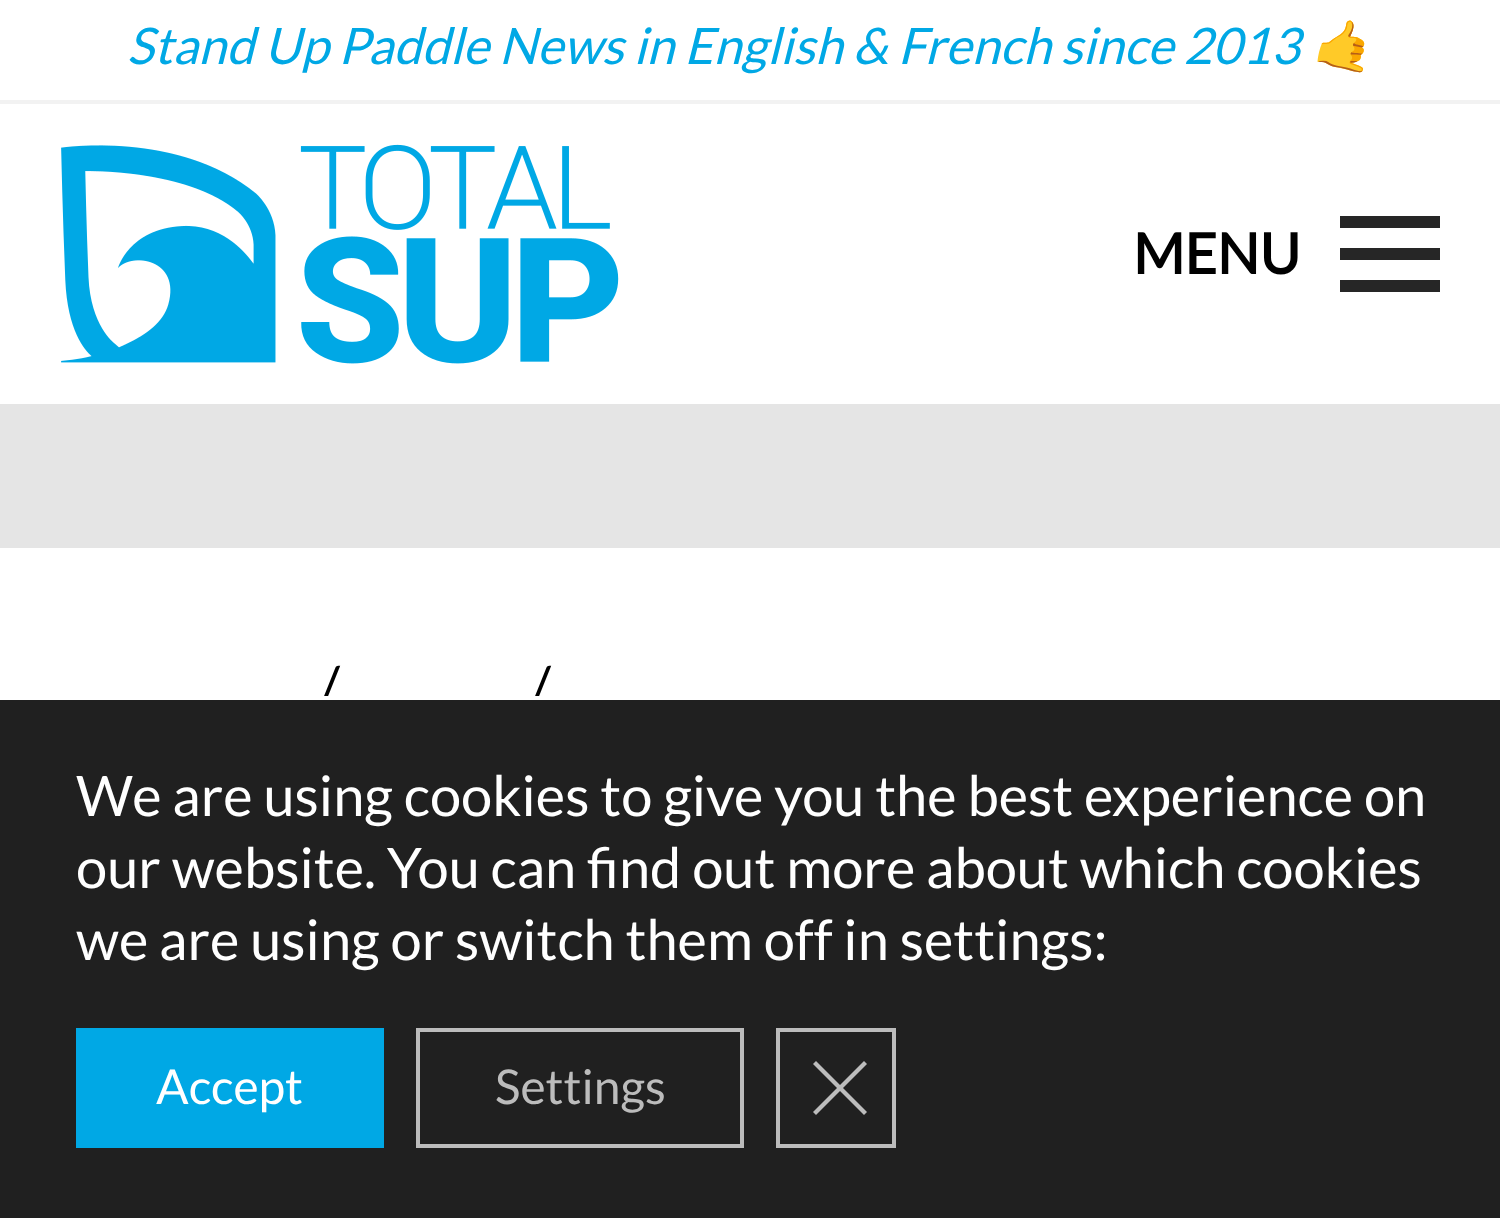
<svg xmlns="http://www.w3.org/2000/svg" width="1500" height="1218">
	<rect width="100%" height="100%" fill="#FFFFFF" />
	<rect x="0" y="100" width="1500" height="4" fill="#F2F2F2" />
	<text x="127" y="64" font-family="Lato" font-size="50.4" font-style="italic" fill="#00A8E5">Stand Up Paddle News in English &amp; French since 2013</text>
	<text x="1310" y="64" font-family="Noto Color Emoji" font-size="50.4" font-style="italic" fill="#00A8E5">🤙</text>
	<image x="61" y="144" width="558" height="220" href="assets/img1.png" />
	<text x="1133" y="274" font-family="Lato" font-size="56" font-weight="700" fill="#000000">MENU</text>
	<rect x="1340" y="216" width="100" height="12" fill="#262626" />
	<rect x="1340" y="248" width="100" height="12" fill="#262626" />
	<rect x="1340" y="280" width="100" height="12" fill="#262626" />
	<rect x="0" y="404" width="1500" height="144" fill="#E5E5E5" />
	<g font-family="Lato" font-size="56" fill="#000000">
		<text x="319" y="707">/</text>
		<text x="530" y="707">/</text>
	</g>
	<rect x="0" y="700" width="1500" height="518" fill="#202020" />
	<rect x="322" y="696" width="217" height="4" fill="#FFFFFF" />
	<g font-family="Lato" font-size="56" fill="#FFFFFF">
		<text x="76" y="816">We are using cookies to give you the best experience on</text>
		<text x="76" y="888">our website. You can find out more about which cookies</text>
		<text x="76" y="960">we are using or switch them off in settings:</text>
	</g>
	<rect x="76" y="1028" width="308" height="120" fill="#00A8E5" />
	<text x="156" y="1104" font-family="Lato" font-size="48" fill="#FFFFFF">Accept</text>
	<rect x="418" y="1030" width="324" height="116" fill="none" stroke="#BCBCBC" stroke-width="4" />
	<text x="495" y="1104" font-family="Lato" font-size="48" fill="#BCBCBC">Settings</text>
	<rect x="778" y="1030" width="116" height="116" fill="none" stroke="#BCBCBC" stroke-width="4" />
	<path d="M864 1061L867 1064L816 1115L813 1112Z" fill="#BCBCBC" />
	<path d="M813 1064L816 1061L867 1112L864 1115Z" fill="#BCBCBC" />
</svg>
